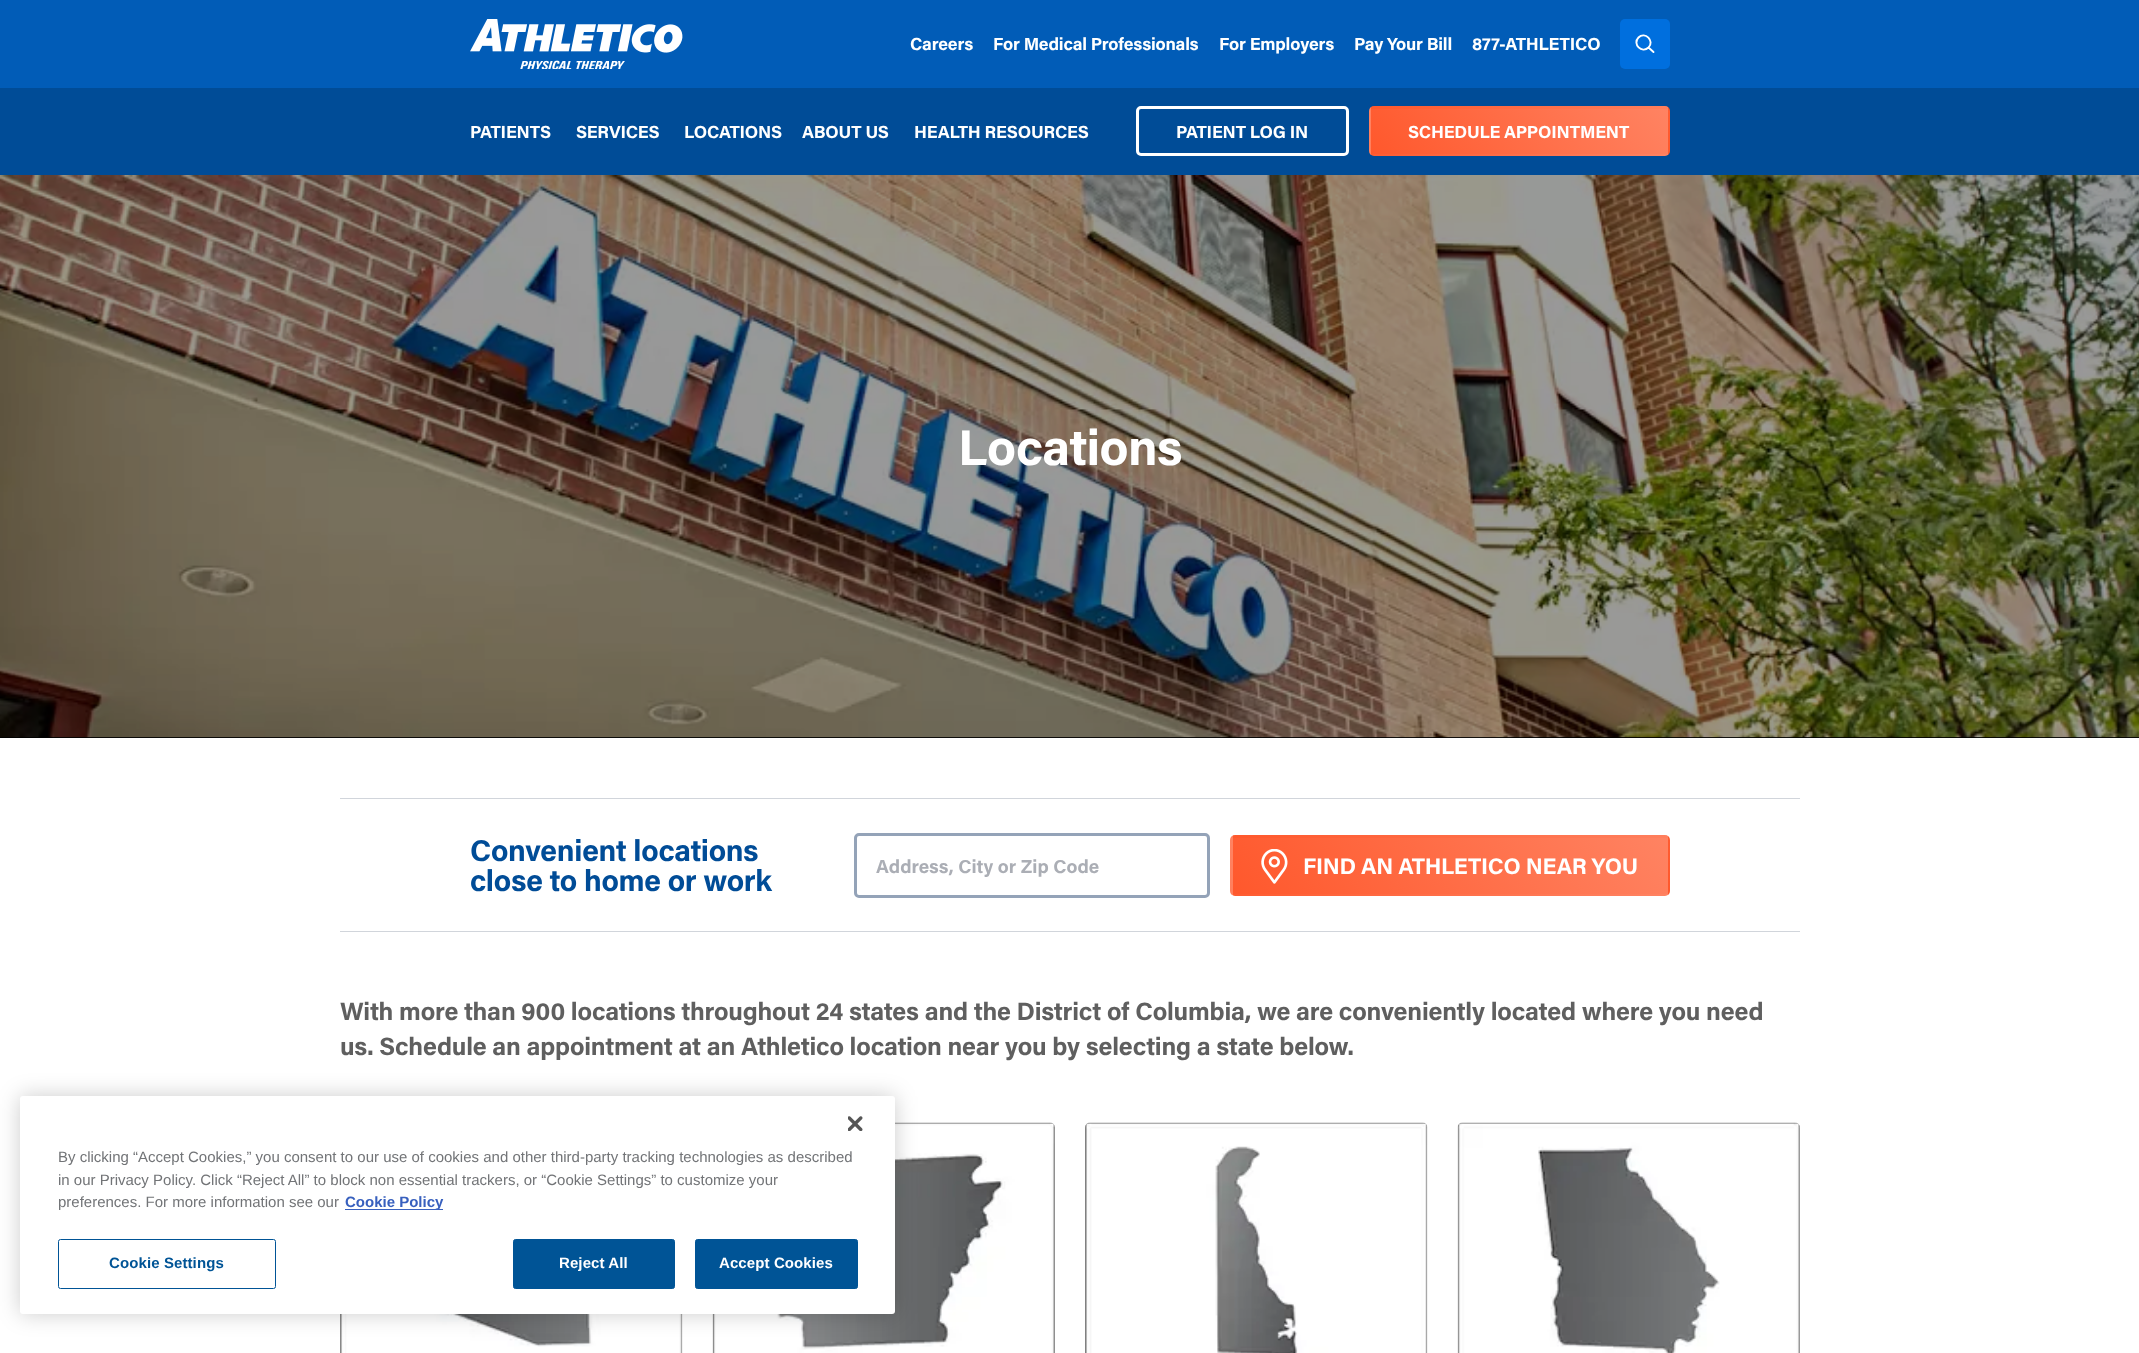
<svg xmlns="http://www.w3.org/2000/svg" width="2139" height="1353">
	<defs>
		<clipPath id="clip1"><rect x="1369" y="106" width="301" height="50" rx="5" /></clipPath>
		<linearGradient id="g1" gradientUnits="userSpaceOnUse" x1="1326" y1="5.9" x2="1120" y2="167"><stop offset="0" stop-color="#FF8362" /><stop offset="1" stop-color="#FF582C" /></linearGradient>
		<linearGradient id="g2" gradientUnits="userSpaceOnUse" x1="1622" y1="5.9" x2="1416" y2="167"><stop offset="0" stop-color="#FF8362" /><stop offset="1" stop-color="#FF582C" /></linearGradient>
		<linearGradient id="g3" gradientUnits="userSpaceOnUse" x1="1919" y1="5.9" x2="1713" y2="167"><stop offset="0" stop-color="#FF8362" /><stop offset="1" stop-color="#FF582C" /></linearGradient>
		<linearGradient id="g4" gradientUnits="userSpaceOnUse" x1="1326" y1="51" x2="1120" y2="212"><stop offset="0" stop-color="#FF8362" /><stop offset="1" stop-color="#FF582C" /></linearGradient>
		<linearGradient id="g5" gradientUnits="userSpaceOnUse" x1="1622" y1="51" x2="1416" y2="212"><stop offset="0" stop-color="#FF8362" /><stop offset="1" stop-color="#FF582C" /></linearGradient>
		<linearGradient id="g6" gradientUnits="userSpaceOnUse" x1="1919" y1="51" x2="1713" y2="212"><stop offset="0" stop-color="#FF8362" /><stop offset="1" stop-color="#FF582C" /></linearGradient>
		<linearGradient id="g7" gradientUnits="userSpaceOnUse" x1="1326" y1="96" x2="1120" y2="257"><stop offset="0" stop-color="#FF8362" /><stop offset="1" stop-color="#FF582C" /></linearGradient>
		<linearGradient id="g8" gradientUnits="userSpaceOnUse" x1="1622" y1="96" x2="1416" y2="257"><stop offset="0" stop-color="#FF8362" /><stop offset="1" stop-color="#FF582C" /></linearGradient>
		<linearGradient id="g9" gradientUnits="userSpaceOnUse" x1="1919" y1="96" x2="1713" y2="257"><stop offset="0" stop-color="#FF8362" /><stop offset="1" stop-color="#FF582C" /></linearGradient>
		<clipPath id="clip2"><rect x="1230" y="835" width="440" height="61" rx="5" /></clipPath>
		<linearGradient id="g10" gradientUnits="userSpaceOnUse" x1="1164" y1="693" x2="866" y2="926"><stop offset="0" stop-color="#FF8362" /><stop offset="1" stop-color="#FF582C" /></linearGradient>
		<linearGradient id="g11" gradientUnits="userSpaceOnUse" x1="1599" y1="693" x2="1301" y2="926"><stop offset="0" stop-color="#FF8362" /><stop offset="1" stop-color="#FF582C" /></linearGradient>
		<linearGradient id="g12" gradientUnits="userSpaceOnUse" x1="2034" y1="693" x2="1736" y2="926"><stop offset="0" stop-color="#FF8362" /><stop offset="1" stop-color="#FF582C" /></linearGradient>
		<linearGradient id="g13" gradientUnits="userSpaceOnUse" x1="1164" y1="749" x2="866" y2="982"><stop offset="0" stop-color="#FF8362" /><stop offset="1" stop-color="#FF582C" /></linearGradient>
		<linearGradient id="g14" gradientUnits="userSpaceOnUse" x1="1599" y1="749" x2="1301" y2="982"><stop offset="0" stop-color="#FF8362" /><stop offset="1" stop-color="#FF582C" /></linearGradient>
		<linearGradient id="g15" gradientUnits="userSpaceOnUse" x1="2034" y1="749" x2="1736" y2="982"><stop offset="0" stop-color="#FF8362" /><stop offset="1" stop-color="#FF582C" /></linearGradient>
		<linearGradient id="g16" gradientUnits="userSpaceOnUse" x1="1164" y1="806" x2="866" y2="1038"><stop offset="0" stop-color="#FF8362" /><stop offset="1" stop-color="#FF582C" /></linearGradient>
		<linearGradient id="g17" gradientUnits="userSpaceOnUse" x1="1599" y1="806" x2="1301" y2="1038"><stop offset="0" stop-color="#FF8362" /><stop offset="1" stop-color="#FF582C" /></linearGradient>
		<linearGradient id="g18" gradientUnits="userSpaceOnUse" x1="2034" y1="806" x2="1736" y2="1038"><stop offset="0" stop-color="#FF8362" /><stop offset="1" stop-color="#FF582C" /></linearGradient>
	</defs>
	<rect width="100%" height="100%" fill="#FFFFFF" />
	<rect x="0" y="0" width="2139" height="88" fill="#015CB7" />
	<image x="470" y="19" width="213" height="50" href="assets/img1.png" />
	<g font-family="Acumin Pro" font-size="17.5" font-weight="700" letter-spacing="-0.2" fill="#FFFFFF">
		<text x="910" y="50">Careers</text>
		<text x="993" y="50">For Medical Professionals</text>
		<text x="1219" y="50">For Employers</text>
		<text x="1354" y="50">Pay Your Bill</text>
		<text x="1472" y="50">877-ATHLETICO</text>
	</g>
	<rect x="1620" y="19" width="50" height="50" rx="5" fill="#006FDE" />
	<path d="M1653.5 52L1648.5 47.5M1648.5 47.5C1655 41 1645 31 1638.5 37.5C1632 44 1642 54 1648.5 47.5Z" fill="none" stroke="#FFFFFF" stroke-width="1.9" stroke-linecap="round" stroke-linejoin="round" />
	<rect x="0" y="88" width="2139" height="87" fill="#004C97" />
	<g font-family="Acumin Pro" font-size="17.5" font-weight="700" letter-spacing="-0.2" fill="#FFFFFF">
		<text x="470" y="138">PATIENTS</text>
		<text x="576" y="138">SERVICES</text>
		<text x="684" y="138">LOCATIONS</text>
		<text x="802" y="138">ABOUT US</text>
		<text x="914" y="138">HEALTH RESOURCES</text>
	</g>
	<rect x="1137.5" y="107.5" width="210" height="47" rx="3.5" fill="none" stroke="#FFFFFF" stroke-width="3" />
	<text x="1176" y="138" font-family="Acumin Pro" font-size="17.5" font-weight="700" letter-spacing="-0.2" fill="#FFFFFF">PATIENT LOG IN</text>
	<g clip-path="url(#clip1)">
		<rect x="1369" y="106" width="2" height="3" fill="url(#g1)" />
		<rect x="1371" y="106" width="297" height="3" fill="url(#g2)" />
		<rect x="1668" y="106" width="2" height="3" fill="url(#g3)" />
		<rect x="1369" y="109" width="2" height="45" fill="url(#g4)" />
	</g>
	<rect x="1371" y="109" width="297" height="45" fill="url(#g5)" />
	<g clip-path="url(#clip1)">
		<rect x="1668" y="109" width="2" height="45" fill="url(#g6)" />
		<rect x="1369" y="154" width="2" height="1" fill="url(#g7)" />
		<rect x="1371" y="154" width="297" height="2" fill="url(#g8)" />
		<rect x="1668" y="154" width="2" height="1" fill="url(#g9)" />
	</g>
	<text x="1408" y="138" font-family="Acumin Pro" font-size="17.5" font-weight="700" letter-spacing="-0.2" fill="#FFFFFF">SCHEDULE APPOINTMENT</text>
	<rect x="0" y="737" width="2139" height="1" fill="#000000" />
	<image x="0" y="175" width="2139" height="563" href="assets/img2.png" />
	<text x="958" y="465" font-family="Acumin Pro" font-size="50" font-weight="700" letter-spacing="-0.5" fill="#FFFFFF">Locations</text>
	<rect x="340" y="798" width="1460" height="1" fill="#D1D5DB" />
	<g font-family="Acumin Pro" font-size="30" font-weight="700" letter-spacing="-0.3" fill="#004C97">
		<text x="470" y="861">Convenient locations</text>
		<text x="470" y="891">close to home or work</text>
	</g>
	<rect x="855.5" y="834.5" width="353" height="62" rx="3.5" fill="none" stroke="#94A3B8" stroke-width="3" />
	<text x="876" y="873" font-family="Acumin Pro" font-size="18.75" font-weight="700" fill="#ABAEB5">Address, City or Zip Code</text>
	<g clip-path="url(#clip2)">
		<rect x="1230" y="835" width="3" height="3" fill="url(#g10)" />
		<rect x="1233" y="835" width="435" height="3" fill="url(#g11)" />
		<rect x="1668" y="835" width="2" height="3" fill="url(#g12)" />
		<rect x="1230" y="838" width="3" height="56" fill="url(#g13)" />
	</g>
	<rect x="1233" y="838" width="435" height="56" fill="url(#g14)" />
	<g clip-path="url(#clip2)">
		<rect x="1668" y="838" width="2" height="56" fill="url(#g15)" />
		<rect x="1230" y="894" width="3" height="2" fill="url(#g16)" />
		<rect x="1233" y="894" width="435" height="2" fill="url(#g17)" />
		<rect x="1668" y="894" width="2" height="1" fill="url(#g18)" />
	</g>
	<image x="1261" y="849" width="27" height="35" href="assets/img3.png" />
	<text x="1303" y="874" font-family="Acumin Pro" font-size="22.5" font-weight="700" letter-spacing="-0.25" fill="#FFFFFF">FIND AN ATHLETICO NEAR YOU</text>
	<rect x="340" y="931" width="1460" height="1" fill="#D1D5DB" />
	<g font-family="Acumin Pro" font-size="25" font-weight="700" letter-spacing="-0.2" fill="#5F5F5F">
		<text x="340" y="1020">With more than 900 locations throughout 24 states and the District of Columbia, we are conveniently located where you need</text>
		<text x="340" y="1055">us. Schedule an appointment at an Athletico location near you by selecting a state below.</text>
	</g>
	<image x="340" y="1314" width="343" height="39" href="assets/img4.png" />
	<image x="712" y="1122" width="343" height="231" href="assets/img5.png" />
	<image x="1085" y="1122" width="343" height="231" href="assets/img6.png" />
	<image x="1457" y="1122" width="343" height="231" href="assets/img7.png" />
	<rect x="20" y="1096" width="875" height="218" rx="3" fill="#000000" fill-opacity="0.2" filter="blur(11px)" />
	<rect x="20" y="1096" width="875" height="218" rx="3" fill="#FFFFFF" />
	<image x="848" y="1116" width="15" height="15" href="assets/img8.png" />
	<g font-family="Liberation Sans" font-size="15" fill="#727477">
		<text x="58" y="1162">By clicking “Accept Cookies,” you consent to our use of cookies and other third-party tracking technologies as described</text>
		<text x="58" y="1185">in our Privacy Policy. Click “Reject All” to block non essential trackers, or “Cookie Settings” to customize your</text>
		<text x="58" y="1207">preferences. For more information see our</text>
	</g>
	<rect x="345" y="1209" width="98" height="1" fill="#3860BE" />
	<text x="345" y="1207" font-family="Liberation Sans" font-size="15" font-weight="700" fill="#3860BE">Cookie Policy</text>
	<rect x="58.5" y="1239.5" width="217" height="49" rx="2" fill="none" stroke="#005496" />
	<text x="109" y="1268" font-family="Liberation Sans" font-size="15" font-weight="700" letter-spacing="0.1" fill="#005496">Cookie Settings</text>
	<rect x="513.5" y="1239.5" width="161" height="49" rx="2" fill="#005496" stroke="#005496" />
	<text x="559" y="1268" font-family="Liberation Sans" font-size="15" font-weight="700" letter-spacing="0.1" fill="#FFFFFF">Reject All</text>
	<rect x="695.5" y="1239.5" width="162" height="49" rx="2" fill="#005496" stroke="#005496" />
	<text x="719" y="1268" font-family="Liberation Sans" font-size="15" font-weight="700" letter-spacing="0.1" fill="#FFFFFF">Accept Cookies</text>
</svg>
